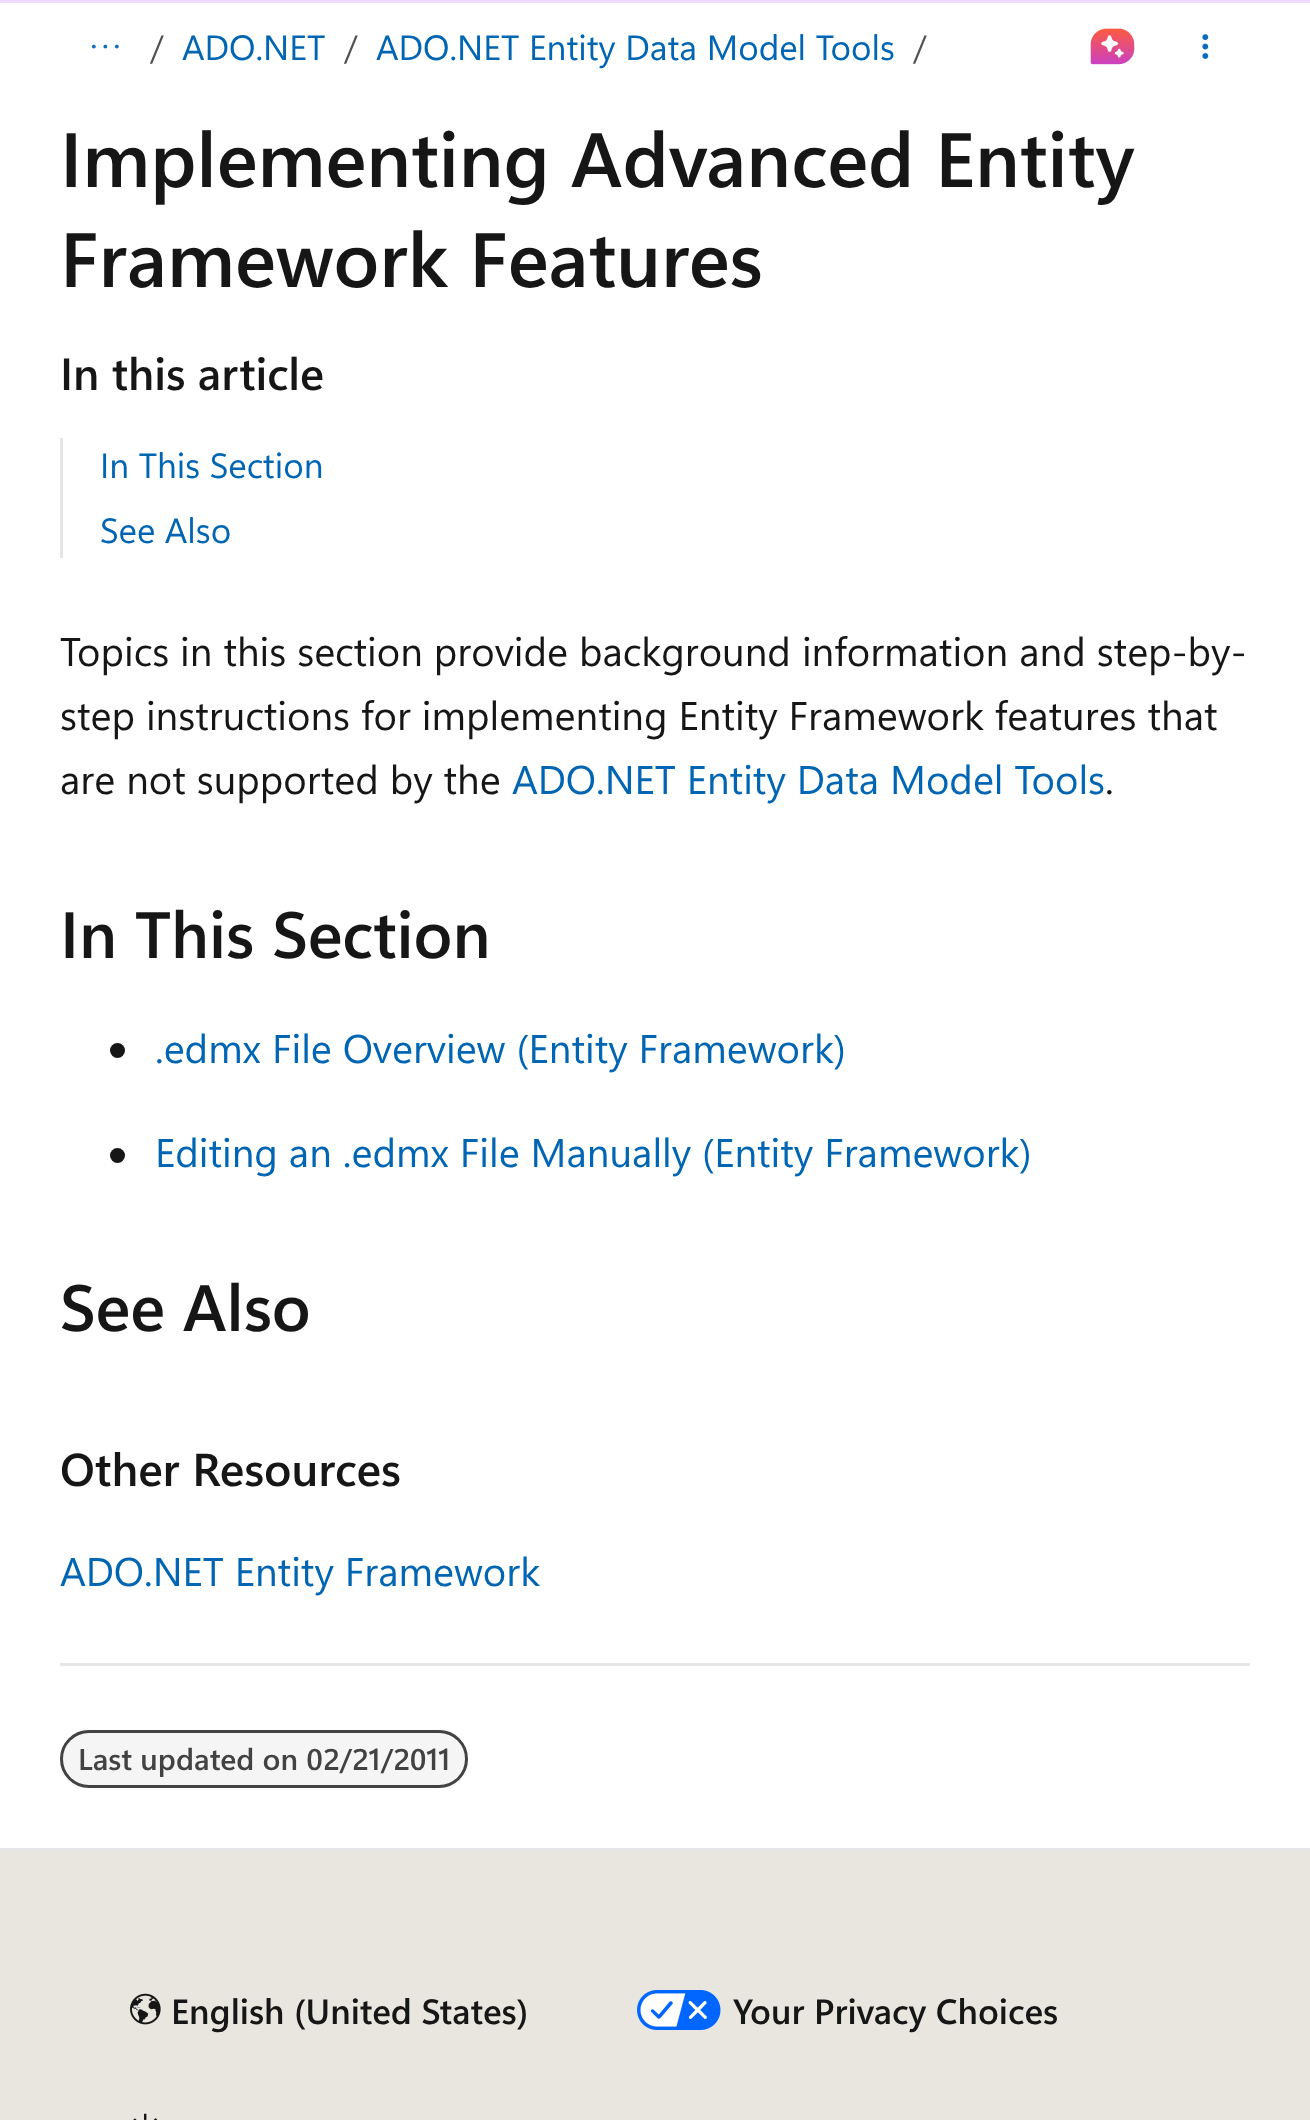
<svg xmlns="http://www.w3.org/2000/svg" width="1310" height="2120">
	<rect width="100%" height="100%" fill="#FFFFFF" />
	<rect x="0" y="0" width="1310" height="3" fill="#EFD9FD" />
	<image x="91" y="44" width="28" height="5" href="assets/img1.png" />
	<text x="150" y="60" font-family="Segoe UI" font-size="35" fill="#505050">/</text>
	<text x="182" y="60" font-family="Segoe UI" font-size="35" fill="#0065B3">ADO.NET</text>
	<text x="344" y="60" font-family="Segoe UI" font-size="35" fill="#505050">/</text>
	<text x="376" y="60" font-family="Segoe UI" font-size="35" fill="#0065B3">ADO.NET Entity Data Model Tools</text>
	<text x="913" y="60" font-family="Segoe UI" font-size="35" fill="#505050">/</text>
	<image x="1090" y="28" width="45" height="37" href="assets/img2.png" />
	<image x="1202" y="34" width="7" height="25" href="assets/img3.png" />
	<g font-family="Segoe UI" font-size="76.75" font-weight="600" fill="#161616">
		<text x="60" y="187">Implementing Advanced Entity</text>
		<text x="60" y="287">Framework Features</text>
	</g>
	<text x="60" y="390" font-family="Segoe UI" font-size="45" font-weight="600" fill="#161616">In this article</text>
	<rect x="60" y="438" width="3" height="120" fill="#E6E6E6" />
	<g font-family="Segoe UI" font-size="35" fill="#0065B3">
		<text x="100" y="478">In This Section</text>
		<text x="100" y="543">See Also</text>
	</g>
	<g font-family="Segoe UI" font-size="40" fill="#161616">
		<text x="60" y="666">Topics in this section provide background information and step-by-</text>
		<text x="60" y="730">step instructions for implementing Entity Framework features that</text>
		<text x="60" y="794">are not supported by the</text>
	</g>
	<text x="512" y="794" font-family="Segoe UI" font-size="40" fill="#0065B3">ADO.NET Entity Data Model Tools</text>
	<text x="1105" y="794" font-family="Segoe UI" font-size="40" fill="#161616">.</text>
	<text x="60" y="958" font-family="Segoe UI" font-size="65.25" font-weight="600" fill="#161616">In This Section</text>
	<circle cx="117.5" cy="1050.5" r="7.5" fill="#161616" />
	<text x="155" y="1063" font-family="Segoe UI" font-size="40" fill="#0065B3">.edmx File Overview (Entity Framework)</text>
	<circle cx="117.5" cy="1155.5" r="7.5" fill="#161616" />
	<text x="155" y="1167" font-family="Segoe UI" font-size="40" fill="#0065B3">Editing an .edmx File Manually (Entity Framework)</text>
	<text x="60" y="1331" font-family="Segoe UI" font-size="65.25" font-weight="600" fill="#161616">See Also</text>
	<text x="60" y="1486" font-family="Segoe UI" font-size="46" font-weight="600" fill="#161616">Other Resources</text>
	<text x="60" y="1586" font-family="Segoe UI" font-size="40" fill="#0065B3">ADO.NET Entity Framework</text>
	<rect x="60" y="1663" width="1190" height="3" fill="#E6E6E6" />
	<rect x="61.5" y="1731.5" width="405" height="55" rx="27.5" fill="#F5F5F5" stroke="#424242" stroke-width="3" />
	<text x="78" y="1770" font-family="Segoe UI" font-size="30" font-weight="600" fill="#424242">Last updated on 02/21/2011</text>
	<rect x="0" y="1851" width="1310" height="269" fill="#E8E6DF" />
	<rect x="0" y="1848" width="1310" height="3" fill="#E6E6E6" />
	<image x="130" y="1993" width="31" height="32" href="assets/img4.png" />
	<text x="171" y="2024" font-family="Segoe UI" font-size="35" font-weight="600" fill="#161616">English (United States)</text>
	<image x="637" y="1990" width="84" height="40" href="assets/img5.png" />
	<text x="733" y="2024" font-family="Segoe UI" font-size="35" font-weight="600" fill="#161616">Your Privacy Choices</text>
	<image x="133" y="2113" width="25" height="7" href="assets/img6.png" />
</svg>
